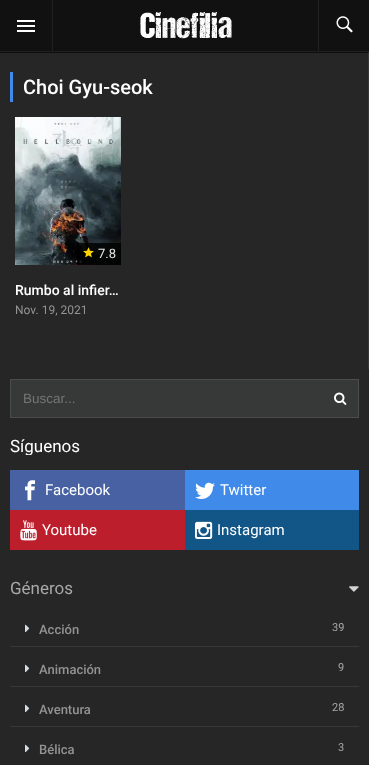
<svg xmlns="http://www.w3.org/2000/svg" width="369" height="765">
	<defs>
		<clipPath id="clip1"><rect x="10" y="438" width="349" height="17" /></clipPath>
	</defs>
	<rect width="100%" height="100%" fill="#262626" />
	<rect x="0" y="0" width="369" height="51" fill="#111111" />
	<rect x="0" y="52" width="369" height="1" fill="#0E0E0E" />
	<rect x="52" y="0" width="1" height="52" fill="#212121" />
	<image x="17" y="20" width="18" height="12" href="assets/img1.png" />
	<image x="140" y="12" width="92" height="27" href="assets/img2.png" />
	<rect x="318" y="0" width="1" height="52" fill="#212121" />
	<image x="336" y="16" width="17" height="17" href="assets/img3.png" />
	<rect x="0" y="51" width="369" height="1" fill="#202020" />
	<rect x="368" y="52" width="1" height="317" fill="#FFFFFF" fill-opacity="0.08" />
	<rect x="10" y="72" width="3" height="30" fill="#408BEA" />
	<text x="23" y="94" font-family="Roboto" font-size="20" font-weight="500" fill="#FFFFFF">Choi Gyu-seok</text>
	<image x="15" y="117" width="106" height="148" href="assets/img4.png" />
	<rect x="77" y="243" width="44" height="22" fill="#000000" fill-opacity="0.8" />
	<image x="83" y="247" width="11" height="11" href="assets/img5.png" />
	<text x="98" y="258" font-family="Roboto" font-size="13" fill="#E6E6E6">7.8</text>
	<text x="15" y="295" font-family="Roboto" font-size="14" font-weight="500" fill="#FFFFFF">Rumbo al infier…</text>
	<text x="15" y="314" font-family="Roboto" font-size="12" fill="#939393">Nov. 19, 2021</text>
	<rect x="10.5" y="379.5" width="348" height="38" fill="#373838" stroke="#4B4C4C" />
	<text x="23" y="403" font-family="Liberation Sans" font-size="13.5" fill="#757575">Buscar...</text>
	<image x="334" y="392" width="13" height="13" href="assets/img6.png" />
	<g clip-path="url(#clip1)">
		<text x="10" y="452" font-family="Roboto" font-size="17" fill="#FFFFFF">Síguenos</text>
	</g>
	<rect x="10" y="470" width="175" height="40" fill="#4861A3" />
	<image x="25" y="480" width="10" height="21" href="assets/img7.png" />
	<text x="45" y="495" font-family="Roboto" font-size="15" fill="#FFFFFF">Facebook</text>
	<rect x="185" y="470" width="174" height="40" fill="#408BEA" />
	<image x="195" y="482" width="20" height="17" href="assets/img8.png" />
	<text x="220" y="495" font-family="Roboto" font-size="15" fill="#FFFFFF">Twitter</text>
	<rect x="10" y="510" width="175" height="40" fill="#BC1E2C" />
	<image x="20" y="520" width="17" height="21" href="assets/img9.png" />
	<text x="42" y="535" font-family="Roboto" font-size="15" fill="#FFFFFF">Youtube</text>
	<rect x="185" y="510" width="174" height="40" fill="#125688" />
	<image x="195" y="521" width="18" height="18" href="assets/img10.png" />
	<text x="217" y="535" font-family="Roboto" font-size="15" fill="#FFFFFF">Instagram</text>
	<text x="10" y="594" font-family="Roboto" font-size="17" fill="#A8A8A8">Géneros</text>
	<image x="349" y="586" width="10" height="6" href="assets/img11.png" />
	<rect x="10" y="646" width="349" height="1" fill="#373838" />
	<image x="25" y="624" width="5" height="9" href="assets/img12.png" />
	<text x="39" y="634" font-family="Roboto" font-size="13" font-weight="500" fill="#939393">Acción</text>
	<text x="332" y="631" font-family="Roboto" font-size="11" fill="#A8A8A8">39</text>
	<rect x="10" y="686" width="349" height="1" fill="#373838" />
	<image x="25" y="664" width="5" height="9" href="assets/img12.png" />
	<text x="39" y="674" font-family="Roboto" font-size="13" font-weight="500" fill="#939393">Animación</text>
	<text x="338" y="671" font-family="Roboto" font-size="11" fill="#A8A8A8">9</text>
	<rect x="10" y="726" width="349" height="1" fill="#373838" />
	<image x="25" y="704" width="5" height="9" href="assets/img12.png" />
	<text x="39" y="714" font-family="Roboto" font-size="13" font-weight="500" fill="#939393">Aventura</text>
	<text x="332" y="711" font-family="Roboto" font-size="11" fill="#A8A8A8">28</text>
	<image x="25" y="744" width="5" height="9" href="assets/img12.png" />
	<text x="39" y="754" font-family="Roboto" font-size="13" font-weight="500" fill="#939393">Bélica</text>
	<text x="338" y="751" font-family="Roboto" font-size="11" fill="#A8A8A8">3</text>
</svg>
